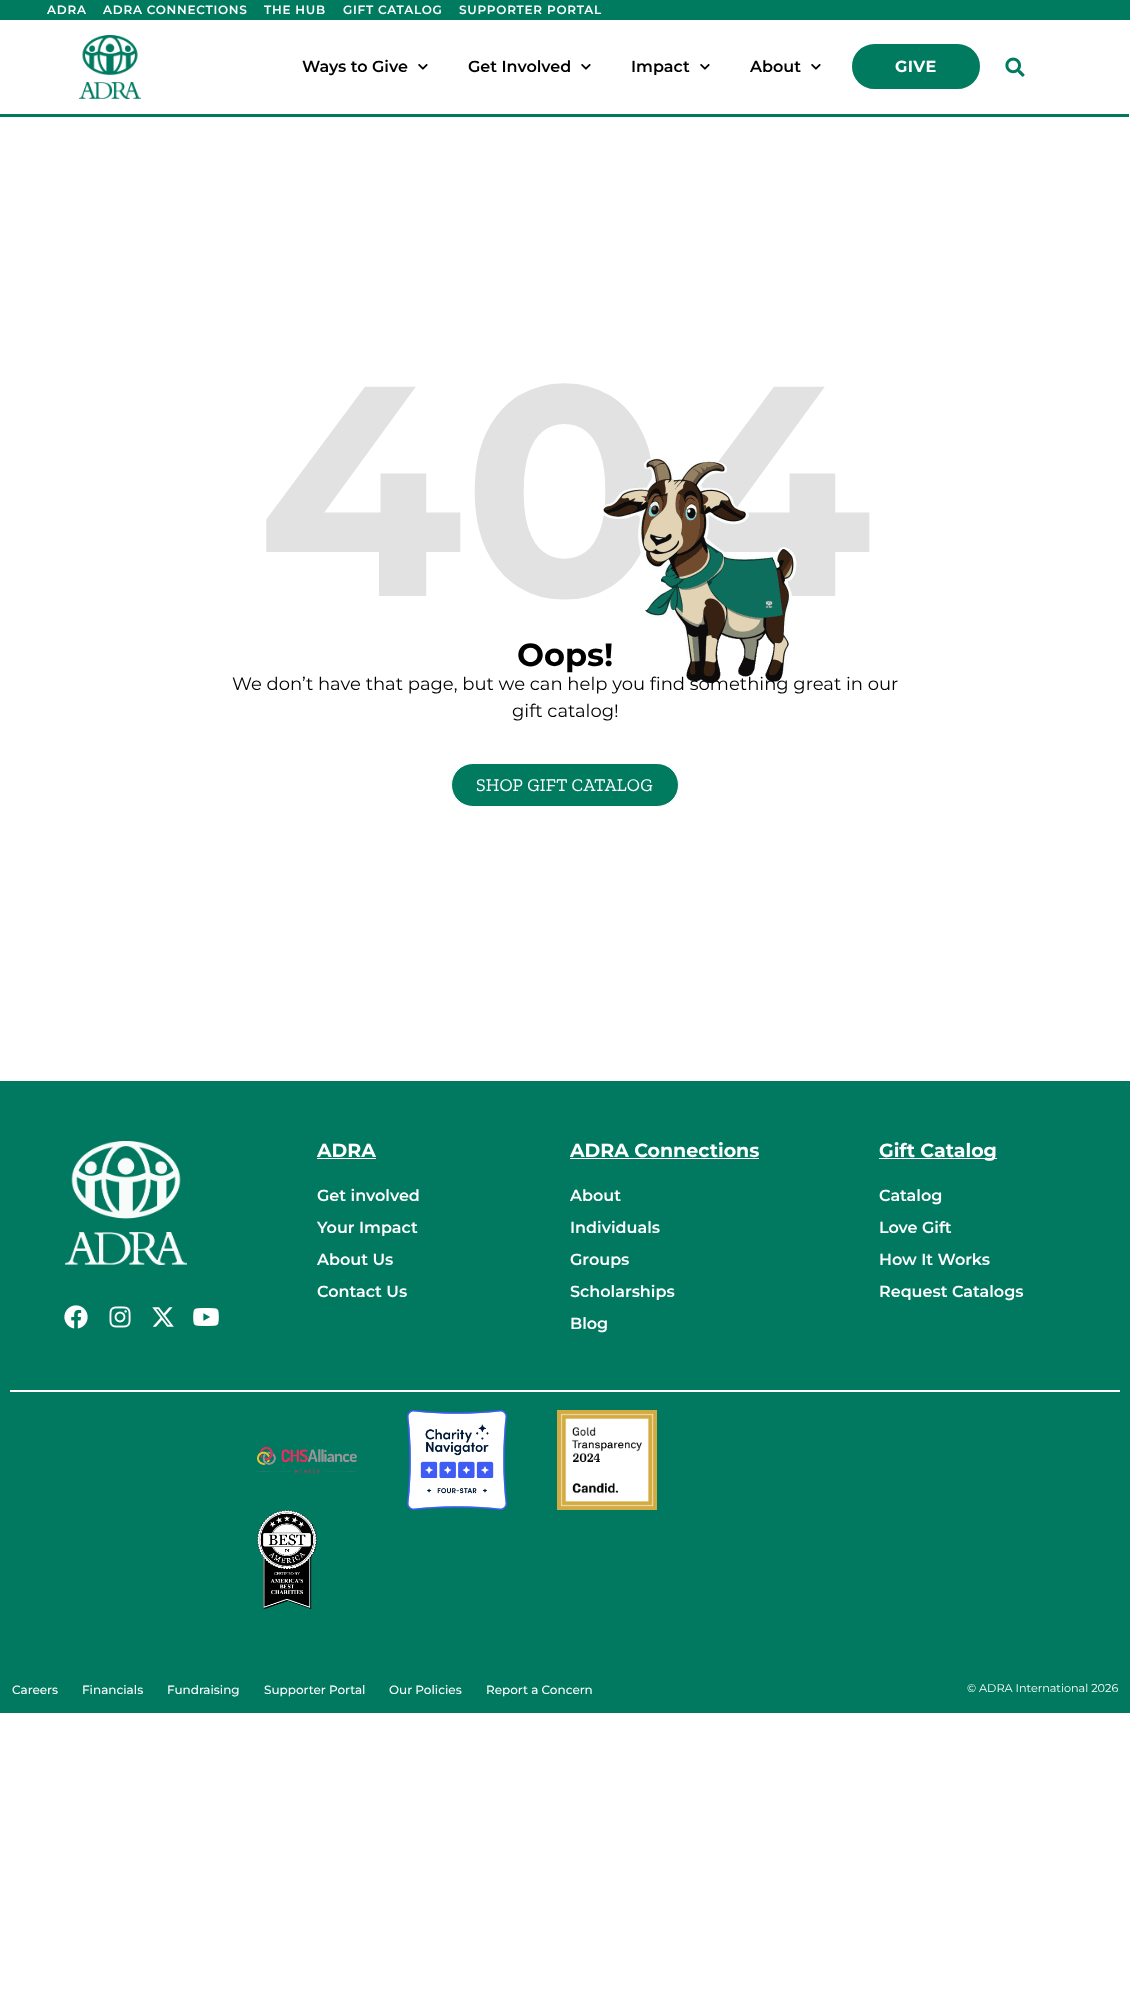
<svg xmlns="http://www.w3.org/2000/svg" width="1130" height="2008">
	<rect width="100%" height="100%" fill="#FFFFFF" />
	<rect x="0" y="0" width="1130" height="20" fill="#007B5F" />
	<g font-family="Montserrat" font-size="12" font-weight="600" letter-spacing="0.75" fill="#FFFFFF">
		<text x="47" y="14">ADRA</text>
		<text x="103" y="14">ADRA CONNECTIONS</text>
		<text x="264" y="14">THE HUB</text>
		<text x="343" y="14">GIFT CATALOG</text>
		<text x="459" y="14">SUPPORTER PORTAL</text>
	</g>
	<rect x="0" y="114" width="1129" height="3" fill="#007960" />
	<image x="79" y="35" width="62" height="64" href="assets/img1.png" />
	<text x="302" y="72" font-family="Montserrat" font-size="16" font-weight="600" fill="#000000">Ways to Give</text>
	<image x="418" y="64" width="10" height="6" href="assets/img2.png" />
	<text x="468" y="72" font-family="Montserrat" font-size="16" font-weight="600" fill="#000000">Get Involved</text>
	<image x="581" y="64" width="10" height="6" href="assets/img2.png" />
	<text x="631" y="72" font-family="Montserrat" font-size="16" font-weight="600" fill="#000000">Impact</text>
	<image x="700" y="64" width="10" height="6" href="assets/img2.png" />
	<text x="750" y="72" font-family="Montserrat" font-size="16" font-weight="600" fill="#000000">About</text>
	<image x="811" y="64" width="10" height="6" href="assets/img2.png" />
	<rect x="853.5" y="45.5" width="125" height="42" rx="21" fill="#007B5F" stroke="#007B5F" stroke-width="3" />
	<text x="895" y="72" font-family="Montserrat" font-size="16" font-weight="700" letter-spacing="0.5" fill="#FFFFFF">GIVE</text>
	<image x="1005" y="57" width="20" height="20" href="assets/img3.png" />
	<text x="257" y="596" font-family="Montserrat" font-size="299" font-weight="700" fill="#E2E2E2">404</text>
	<text x="517" y="666" font-family="Montserrat" font-size="32" font-weight="700" fill="#000000">Oops!</text>
	<text x="232" y="690" font-family="Montserrat" font-size="18" fill="#000000">We don’t have that page, but we can help you find something great in our</text>
	<image x="603" y="458" width="194" height="226" href="assets/img4.png" />
	<text x="512" y="717" font-family="Montserrat" font-size="18" fill="#000000">gift catalog!</text>
	<rect x="451.5" y="763.5" width="227" height="43" rx="21.5" fill="#007B5F" stroke="#FFFFFF" />
	<text x="476" y="791" font-family="Zilla Slab" font-size="18" letter-spacing="0.25" fill="#FFFFFF">SHOP GIFT CATALOG</text>
	<rect x="0" y="1081" width="1130" height="632" fill="#007960" />
	<image x="65" y="1141" width="122" height="124" href="assets/img5.png" />
	<image x="64" y="1305" width="24" height="24" href="assets/img6.png" />
	<image x="109" y="1306" width="22" height="22" href="assets/img7.png" />
	<image x="152" y="1307" width="22" height="20" href="assets/img8.png" />
	<image x="193" y="1308" width="26" height="18" href="assets/img9.png" />
	<text x="317" y="1157" font-family="Montserrat" font-size="19" font-weight="700" fill="#FFFFFF">ADRA</text>
	<rect x="317" y="1158" width="59" height="1" fill="#FFFFFF" />
	<g font-family="Montserrat" font-size="16" font-weight="600" fill="#FFFFFF">
		<text x="317" y="1201">Get involved</text>
		<text x="317" y="1233">Your Impact</text>
		<text x="317" y="1265">About Us</text>
		<text x="317" y="1297">Contact Us</text>
	</g>
	<text x="570" y="1157" font-family="Montserrat" font-size="19" font-weight="700" fill="#FFFFFF">ADRA Connections</text>
	<rect x="570" y="1158" width="189" height="1" fill="#FFFFFF" />
	<g font-family="Montserrat" font-size="16" font-weight="600" fill="#FFFFFF">
		<text x="570" y="1201">About</text>
		<text x="570" y="1233">Individuals</text>
		<text x="570" y="1265">Groups</text>
		<text x="570" y="1297">Scholarships</text>
		<text x="570" y="1329">Blog</text>
	</g>
	<rect x="879" y="1158" width="118" height="1" fill="#FFFFFF" />
	<text x="879" y="1157" font-family="Montserrat" font-size="19" font-weight="700" fill="#FFFFFF">Gift Catalog</text>
	<g font-family="Montserrat" font-size="16" font-weight="600" fill="#FFFFFF">
		<text x="879" y="1201">Catalog</text>
		<text x="879" y="1233">Love Gift</text>
		<text x="879" y="1265">How It Works</text>
		<text x="879" y="1297">Request Catalogs</text>
	</g>
	<rect x="10" y="1390" width="1110" height="2" fill="#FFFFFF" />
	<image x="257" y="1447" width="100" height="27" href="assets/img10.png" />
	<image x="407" y="1410" width="100" height="100" href="assets/img11.png" />
	<image x="557" y="1410" width="100" height="100" href="assets/img12.png" />
	<image x="257" y="1510" width="60" height="99" href="assets/img13.png" />
	<g font-family="Montserrat" font-size="12" font-weight="500" fill="#FFFFFF">
		<text x="12" y="1694">Careers</text>
		<text x="82" y="1694">Financials</text>
		<text x="167" y="1694">Fundraising</text>
		<text x="264" y="1694">Supporter Portal</text>
		<text x="389" y="1694">Our Policies</text>
		<text x="486" y="1694">Report a Concern</text>
	</g>
	<text x="967" y="1692" font-family="Montserrat" font-size="11.25" fill="#FFFFFF">© ADRA International 2026</text>
</svg>
